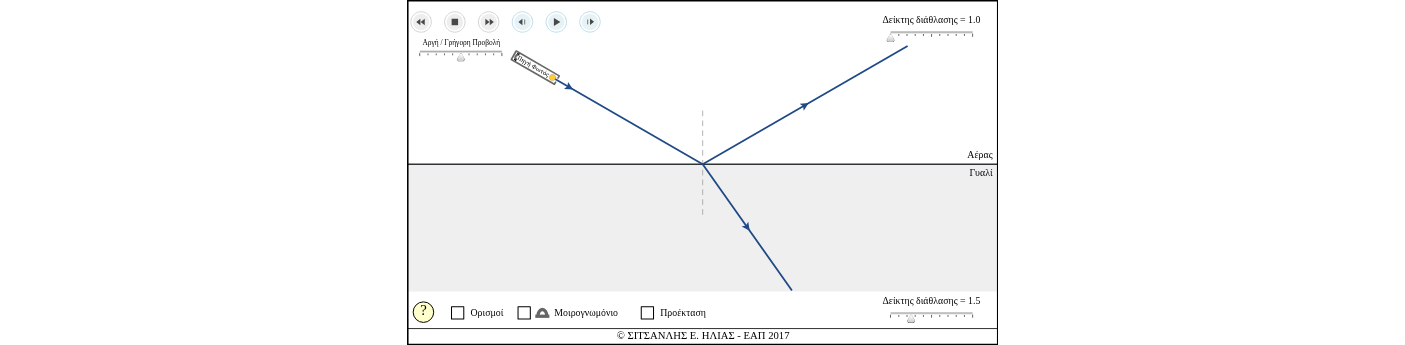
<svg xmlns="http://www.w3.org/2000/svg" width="1405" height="345">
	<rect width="100%" height="100%" fill="#FFFFFF" />
	<image x="407" y="0" width="591" height="345" href="assets/img1.png" />
</svg>
